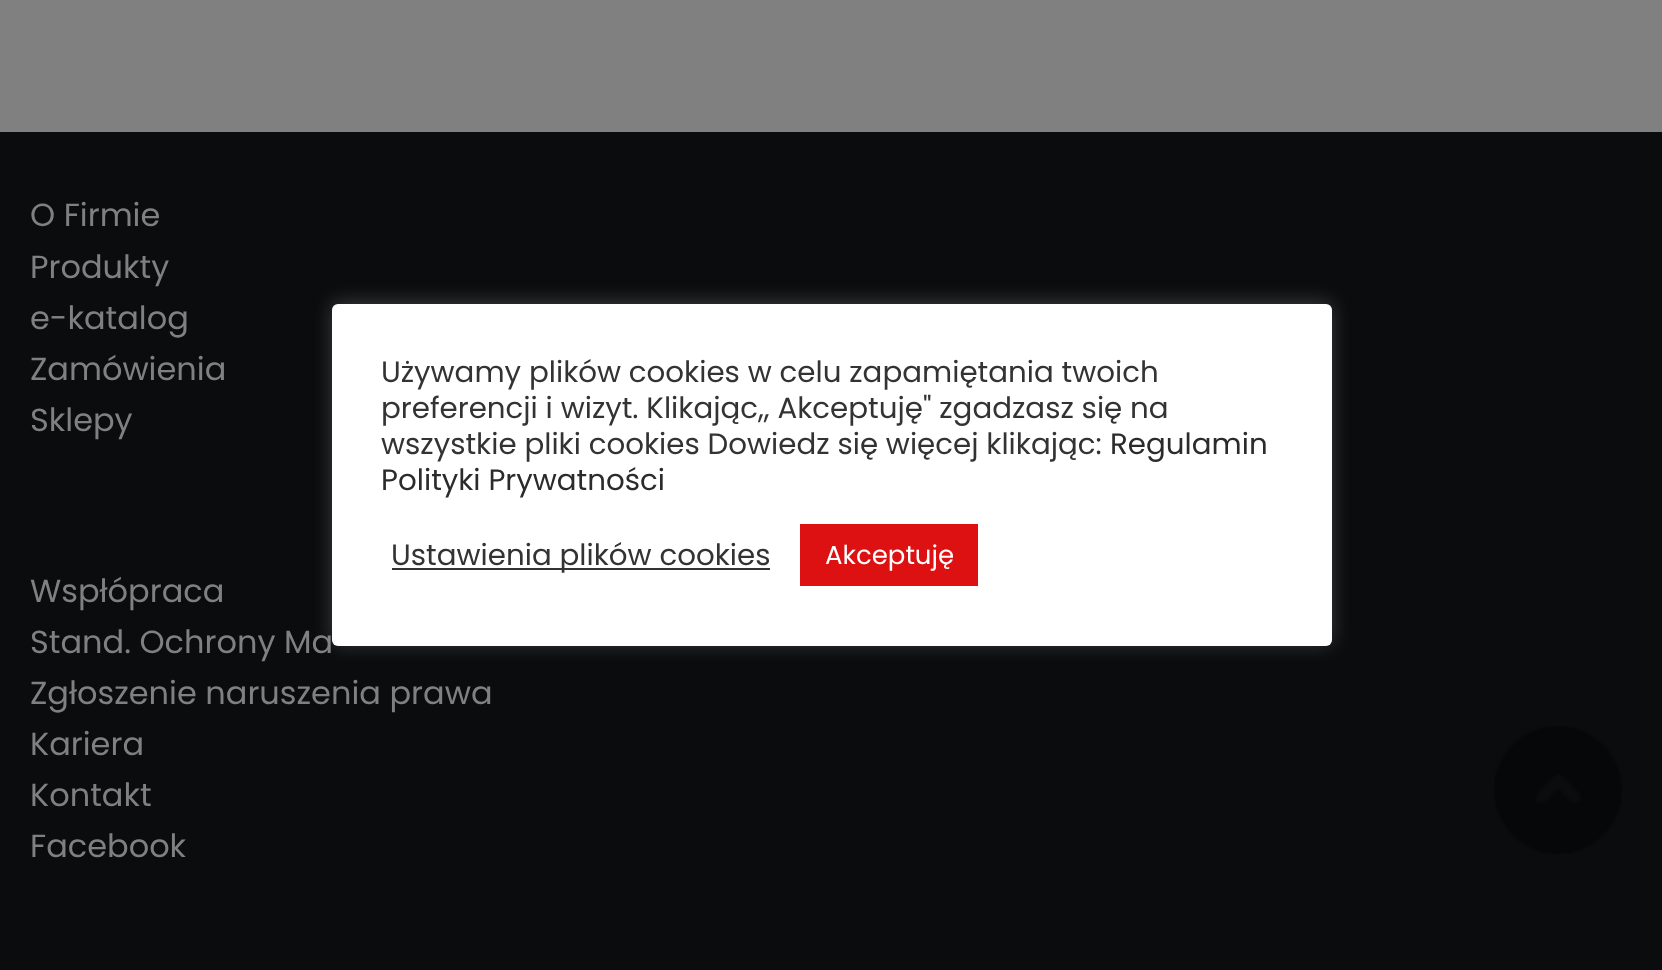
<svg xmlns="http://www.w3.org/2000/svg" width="1662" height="970">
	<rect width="100%" height="100%" fill="#808080" />
	<rect x="0" y="132" width="1662" height="838" fill="#0A0C0E" />
	<g font-family="Poppins" font-size="32" fill="#808080">
		<text x="30" y="226">O Firmie</text>
		<text x="30" y="278">Produkty</text>
		<text x="30" y="329">e-katalog</text>
		<text x="30" y="380">Zamówienia</text>
		<text x="30" y="431">Sklepy</text>
		<text x="30" y="602">Wspłópraca</text>
		<text x="30" y="653">Stand. Ochrony Ma</text>
		<text x="30" y="704">Zgłoszenie naruszenia prawa</text>
		<text x="30" y="755">Kariera</text>
		<text x="30" y="806">Kontakt</text>
		<text x="30" y="857">Facebook</text>
	</g>
	<rect x="332" y="302" width="1000" height="342" rx="6" fill="#ACABAB" fill-opacity="0.3" filter="blur(10px)" />
	<rect x="332" y="304" width="1000" height="342" rx="6" fill="#FFFFFF" />
	<g font-family="Poppins" font-size="29.3" fill="#333333">
		<text x="381" y="382">Używamy plików cookies w celu zapamiętania twoich</text>
		<text x="381" y="418">preferencji i wizyt. Klikając,, Akceptuję" zgadzasz się na</text>
		<text x="381" y="454">wszystkie pliki cookies Dowiedz się więcej klikając:</text>
	</g>
	<g font-family="Poppins" font-size="29.3" fill="#2B2B2B">
		<text x="1110" y="454">Regulamin</text>
		<text x="381" y="490">Polityki Prywatności</text>
	</g>
	<rect x="392" y="568" width="378" height="2" fill="#333333" />
	<text x="391" y="565" font-family="Poppins" font-size="29.3" fill="#333333">Ustawienia plików cookies</text>
	<rect x="800" y="524" width="178" height="62" fill="#DD1111" />
	<text x="825" y="564" font-family="Poppins" font-size="26" fill="#FFFFFF">Akceptuję</text>
	<image x="1494" y="726" width="128" height="128" href="assets/img1.png" />
</svg>
